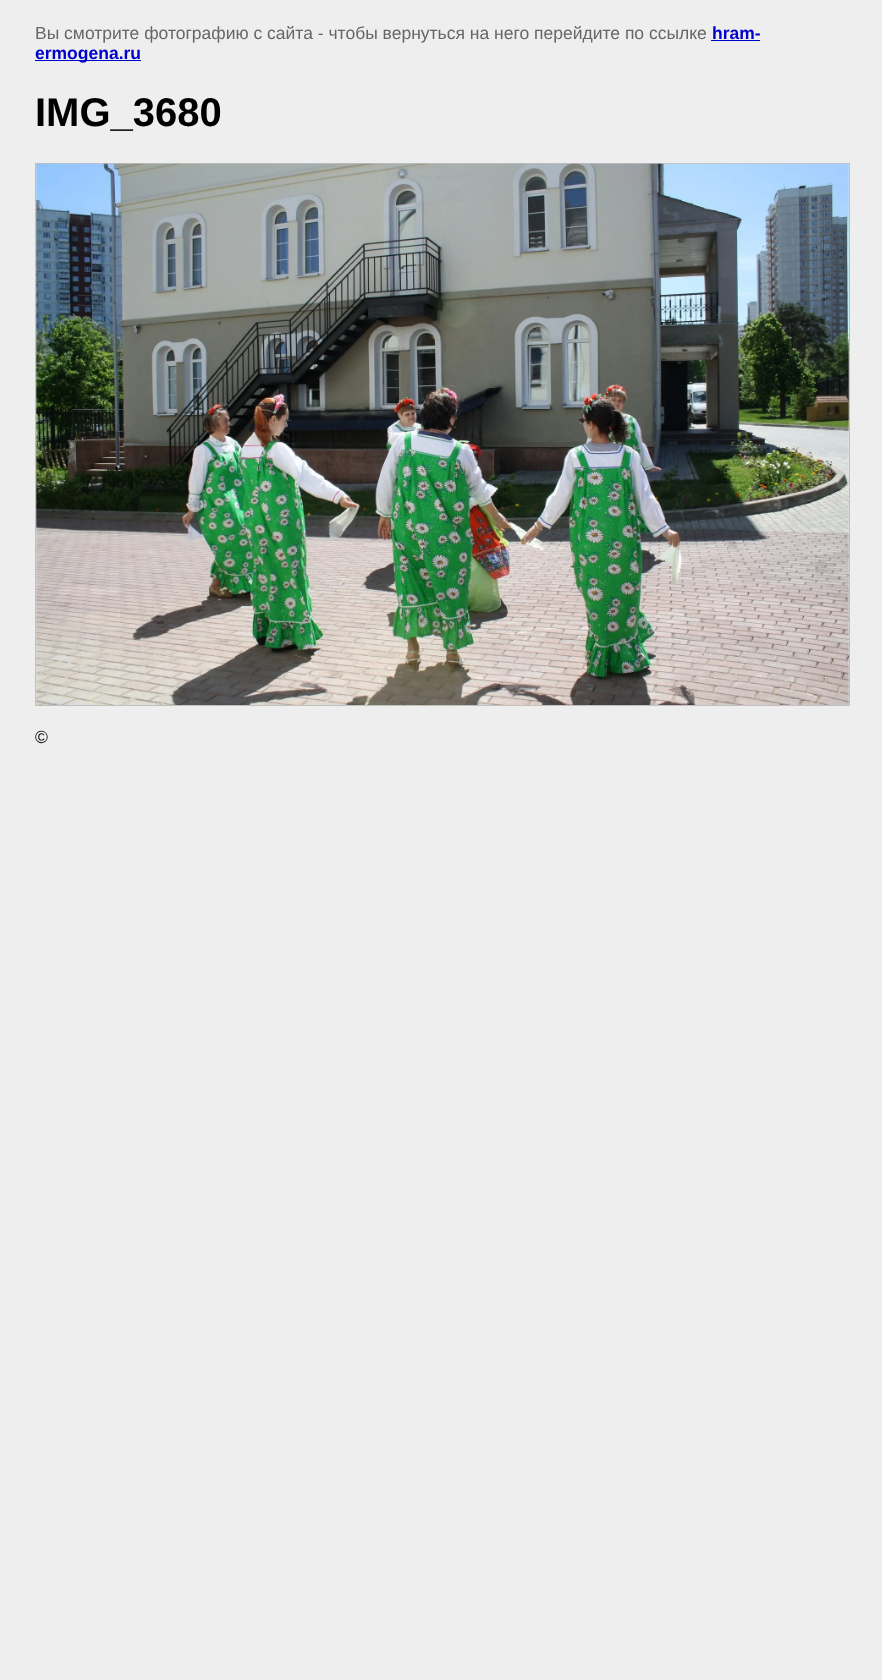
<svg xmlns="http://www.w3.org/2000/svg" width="882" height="1680">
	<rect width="100%" height="100%" fill="#EEEEEE" />
	<text x="35" y="39" font-family="Liberation Sans" font-size="17.5" fill="#666666">Вы смотрите фотографию с сайта - чтобы вернуться на него перейдите по ссылке</text>
	<text x="712" y="39" font-family="Liberation Sans" font-size="17.5" font-weight="700" fill="#0000CC">hram-</text>
	<rect x="711" y="40" width="49" height="1" fill="#0000CC" />
	<rect x="35" y="60" width="106" height="1" fill="#0000CC" />
	<text x="35" y="59" font-family="Liberation Sans" font-size="17.5" font-weight="700" fill="#0000CC">ermogena.ru</text>
	<text x="35" y="126" font-family="Liberation Sans" font-size="40" font-weight="700" fill="#000000">IMG_3680</text>
	<rect x="35.5" y="163.5" width="814" height="542" fill="none" stroke="#C0C0C0" />
	<image x="36" y="163" width="813" height="542" href="assets/img1.png" />
	<text x="35" y="743" font-family="Liberation Sans" font-size="17.5" fill="#000000">©</text>
</svg>
